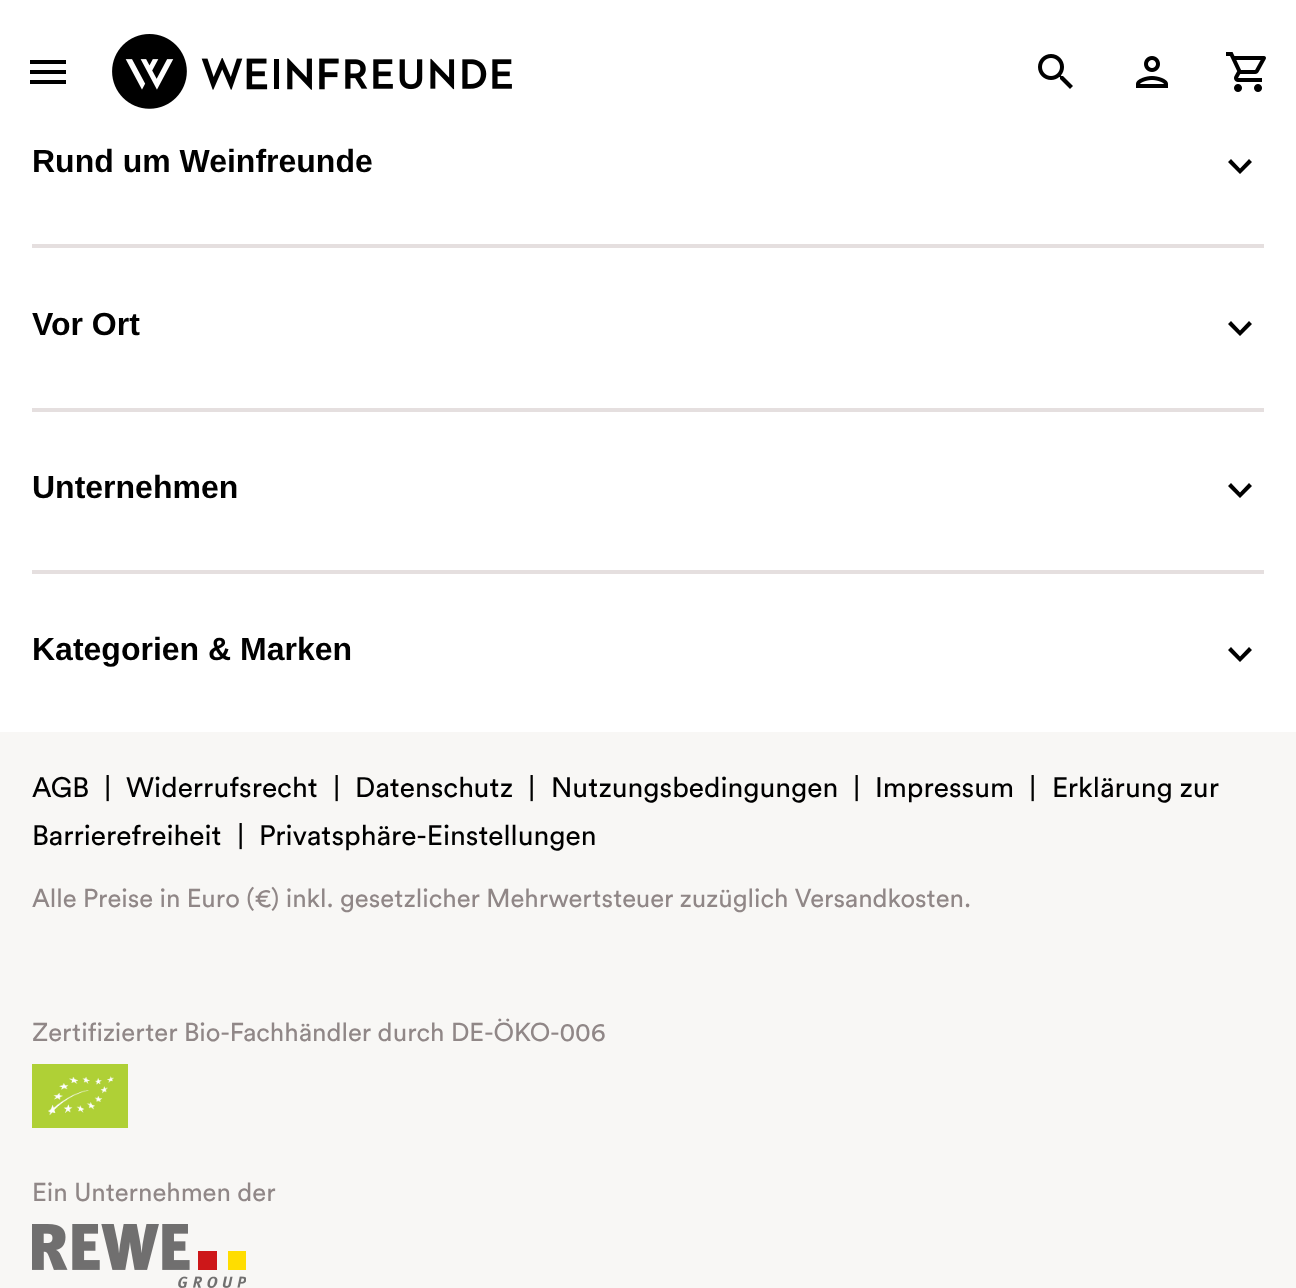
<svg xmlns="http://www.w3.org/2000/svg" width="1296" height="1288">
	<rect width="100%" height="100%" fill="#FFFFFF" />
	<path d="M30 84H66V80H30ZM30 74H66V70H30ZM30 60V64H66V60Z" fill="#000000" />
	<image x="112" y="34" width="400" height="75" href="assets/img1.png" />
	<image x="1038" y="54" width="35" height="35" href="assets/img2.png" />
	<image x="1136" y="56" width="32" height="32" href="assets/img3.png" />
	<image x="1226" y="52" width="40" height="40" href="assets/img4.png" />
	<text x="32" y="172" font-family="Liberation Sans" font-size="32" font-weight="700" fill="#000000">Rund um Weinfreunde</text>
	<path d="M1231 159L1240 168.5L1249 159L1252 162L1240 174L1228 162Z" fill="#000000" />
	<rect x="32" y="244" width="1232" height="4" fill="#E5DFDF" />
	<text x="32" y="335" font-family="Liberation Sans" font-size="32" font-weight="700" fill="#000000">Vor Ort</text>
	<path d="M1231 321L1240 330.5L1249 321L1252 324L1240 336L1228 324Z" fill="#000000" />
	<rect x="32" y="408" width="1232" height="4" fill="#E5DFDF" />
	<text x="32" y="498" font-family="Liberation Sans" font-size="32" font-weight="700" fill="#000000">Unternehmen</text>
	<path d="M1231 483L1240 492.5L1249 483L1252 486L1240 498L1228 486Z" fill="#000000" />
	<rect x="32" y="570" width="1232" height="4" fill="#E5DFDF" />
	<text x="32" y="660" font-family="Liberation Sans" font-size="32" font-weight="700" fill="#000000">Kategorien &amp; Marken</text>
	<path d="M1231 647L1240 656.5L1249 647L1252 650L1240 662L1228 650Z" fill="#000000" />
	<rect x="0" y="732" width="1296" height="556" fill="#F8F7F5" />
	<g font-family="Circular" font-size="28" fill="#000000">
		<text x="32" y="797">AGB</text>
		<text x="104" y="797">|</text>
		<text x="126" y="797">Widerrufsrecht</text>
		<text x="333" y="797">|</text>
		<text x="355" y="797">Datenschutz</text>
		<text x="528" y="797">|</text>
		<text x="551" y="797">Nutzungsbedingungen</text>
		<text x="853" y="797">|</text>
		<text x="875" y="797">Impressum</text>
		<text x="1029" y="797">|</text>
		<text x="1052" y="797">Erklärung zur</text>
		<text x="32" y="845">Barrierefreiheit</text>
		<text x="237" y="845">|</text>
		<text x="259" y="845">Privatsphäre-Einstellungen</text>
	</g>
	<g font-family="Circular" font-size="25.6" fill="#908787">
		<text x="32" y="907">Alle Preise in Euro (€) inkl. gesetzlicher Mehrwertsteuer zuzüglich Versandkosten.</text>
		<text x="32" y="1041">Zertifizierter Bio-Fachhändler durch DE-ÖKO-006</text>
	</g>
	<image x="32" y="1064" width="96" height="64" href="assets/img5.png" />
	<text x="32" y="1201" font-family="Circular" font-size="25.6" fill="#908787">Ein Unternehmen der</text>
	<image x="32" y="1224" width="214" height="64" href="assets/img6.png" />
</svg>
